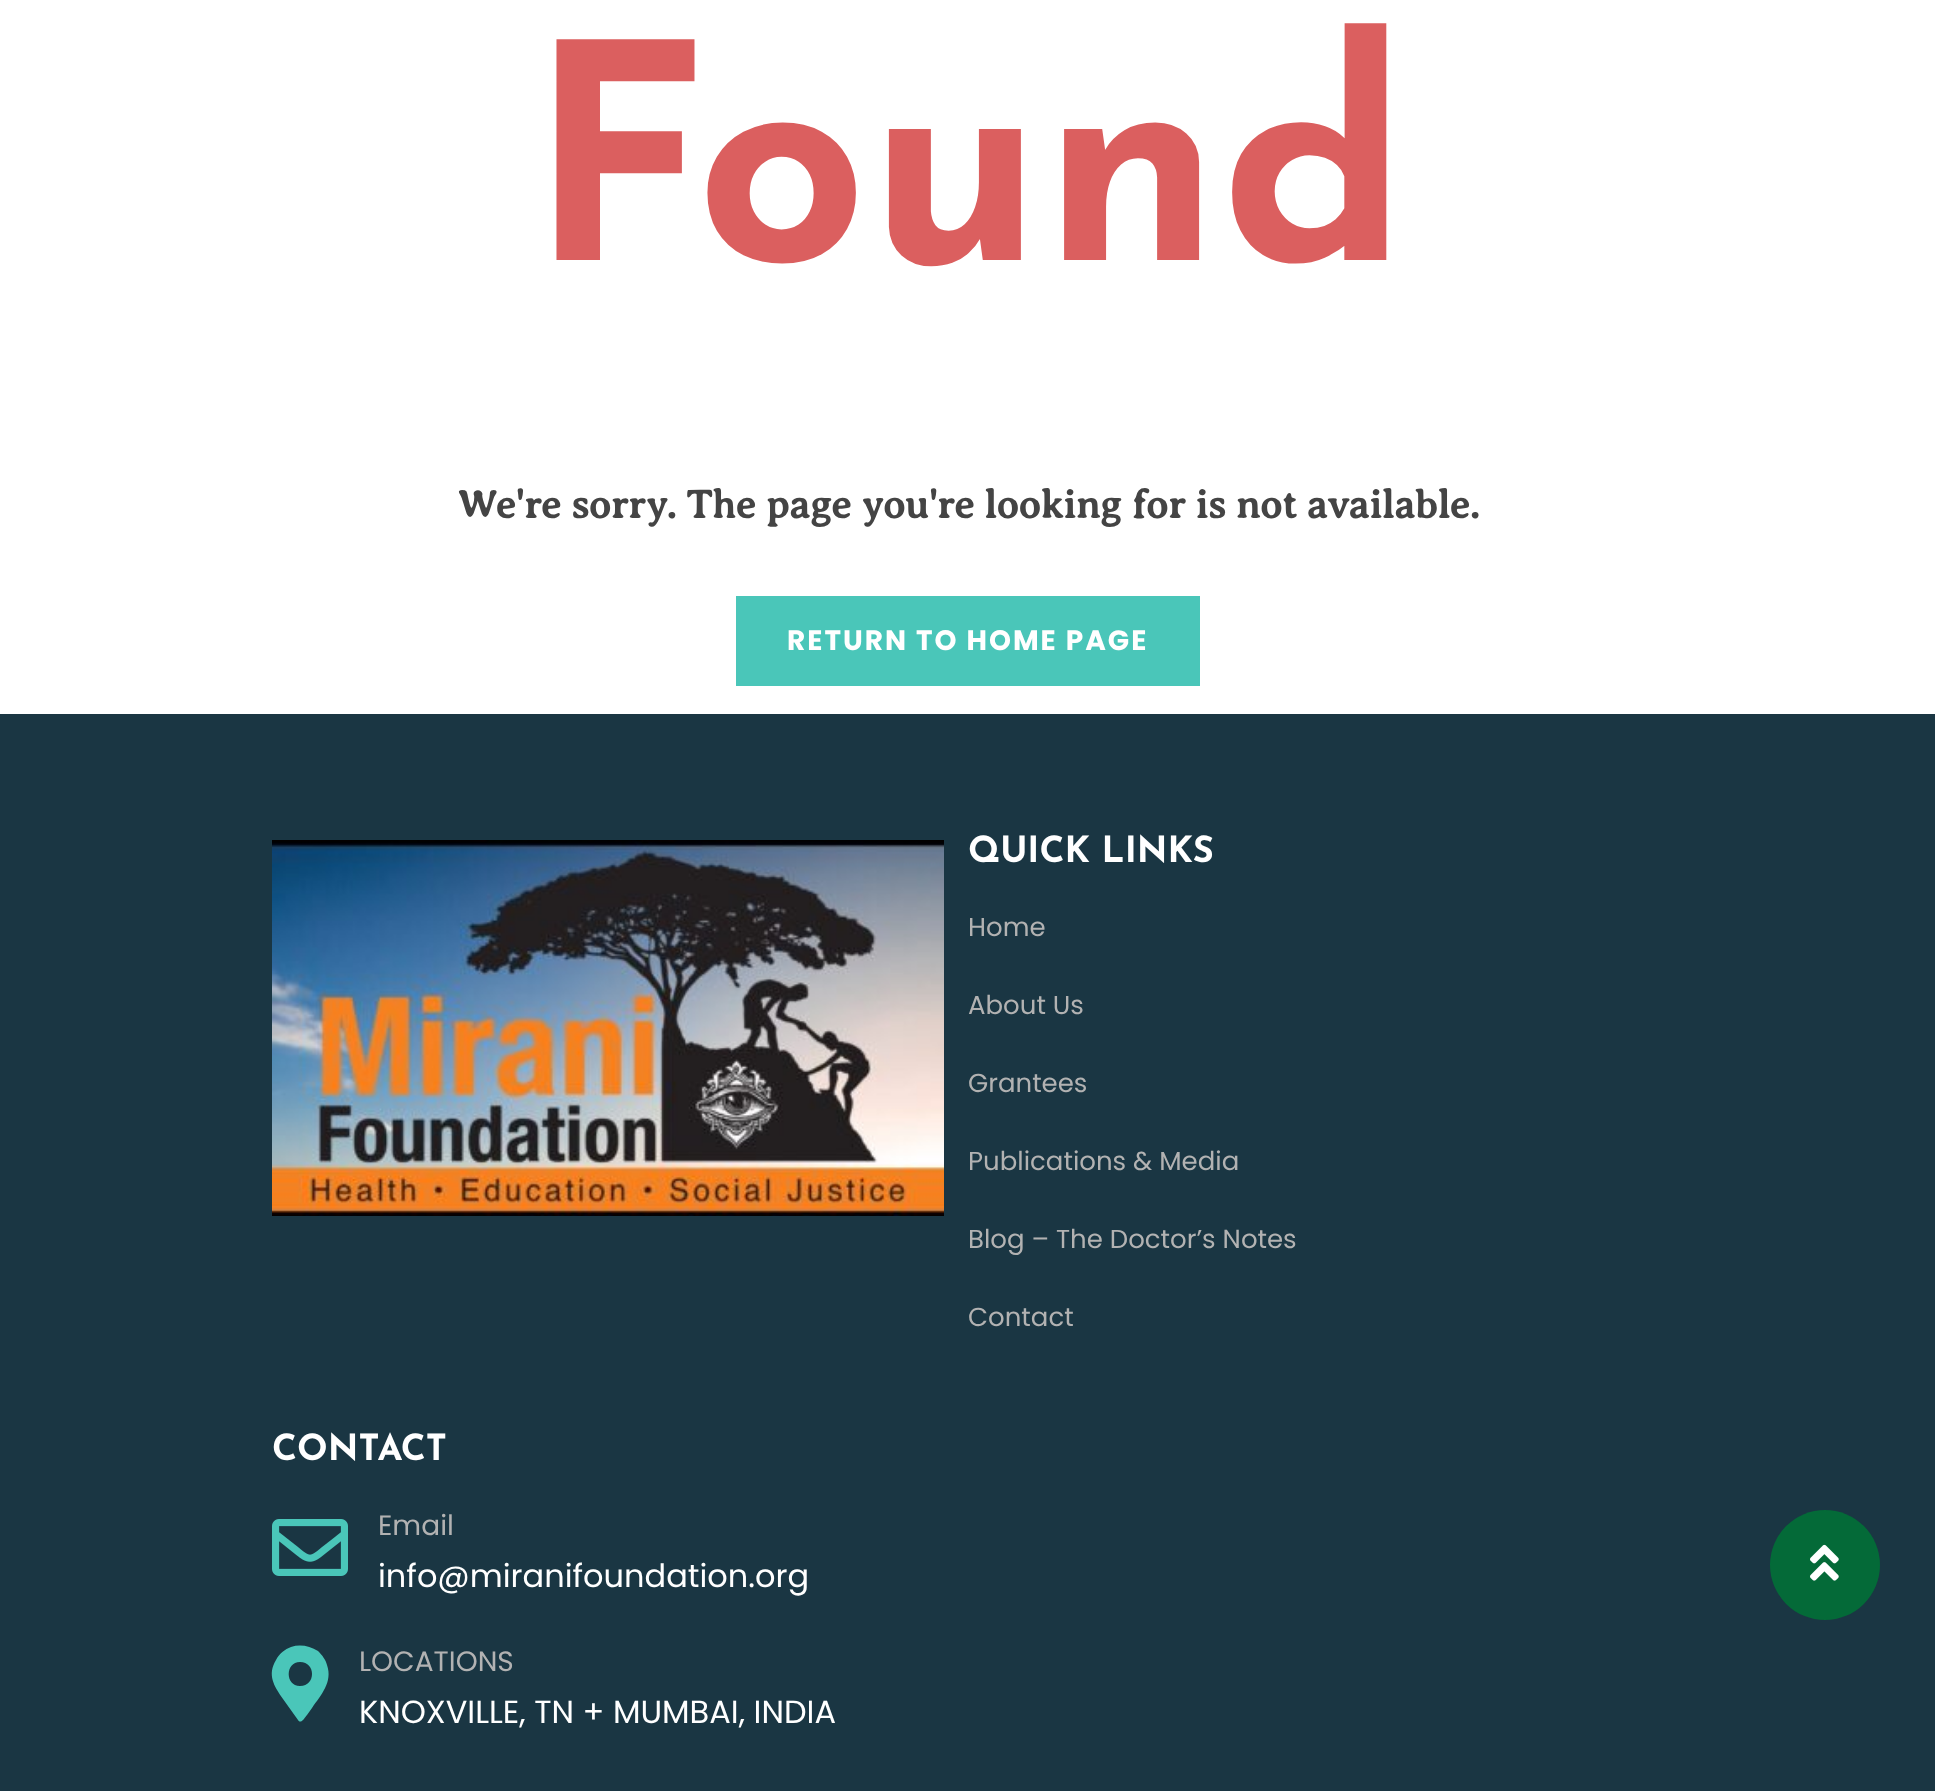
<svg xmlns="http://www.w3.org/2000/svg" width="1935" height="1791">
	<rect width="100%" height="100%" fill="#FFFFFF" />
	<text x="528" y="260" font-family="Josefin Sans" font-size="300" font-weight="700" fill="#DB5F5F">Found</text>
	<text x="457" y="518" font-family="Averia Serif Libre" font-size="40" font-weight="700" fill="#444444">We're sorry. The page you're looking for is not available.</text>
	<rect x="736" y="596" width="464" height="90" fill="#4AC6B9" />
	<text x="787" y="650" font-family="Poppins" font-size="28" font-weight="700" letter-spacing="2" fill="#FFFFFF">RETURN TO HOME PAGE</text>
	<rect x="0" y="714" width="1935" height="1077" fill="#1A3643" />
	<image x="272" y="840" width="672" height="376" href="assets/img1.png" />
	<text x="968" y="862" font-family="Josefin Sans" font-size="36" font-weight="700" fill="#FFFFFF">QUICK LINKS</text>
	<g font-family="Poppins" font-size="26" fill="#B2B2B2">
		<text x="968" y="936">Home</text>
		<text x="968" y="1014">About Us</text>
		<text x="968" y="1092">Grantees</text>
		<text x="968" y="1170">Publications &amp; Media</text>
		<text x="968" y="1248">Blog – The Doctor’s Notes</text>
		<text x="968" y="1326">Contact</text>
	</g>
	<text x="272" y="1460" font-family="Josefin Sans" font-size="36" font-weight="700" fill="#FFFFFF">CONTACT</text>
	<image x="272" y="1519" width="76" height="57" href="assets/img2.png" />
	<text x="378" y="1535" font-family="Poppins" font-size="28" fill="#B2B2B2">Email</text>
	<text x="378" y="1587" font-family="Poppins" font-size="32" fill="#FFFFFF">info@miranifoundation.org</text>
	<path d="M298 1720L283 1699C274 1686 267 1675 276 1660C279 1654 285 1649 291 1647C300 1644 310 1646 318 1651C322 1655 326 1660 327 1665C333 1682 321 1695 312 1708L307 1715C305 1717 301 1725 298 1720ZM300 1686C316 1686 316 1662 300 1662C285 1662 285 1686 300 1686Z" fill="#4AC6B9" />
	<text x="359" y="1671" font-family="Poppins" font-size="28" fill="#B2B2B2">LOCATIONS</text>
	<text x="359" y="1723" font-family="Poppins" font-size="32" fill="#FFFFFF">KNOXVILLE, TN + MUMBAI, INDIA</text>
	<circle cx="1825" cy="1565" r="55" fill="#046A38" />
	<image x="1810" y="1544" width="29" height="37" href="assets/img3.png" />
</svg>
